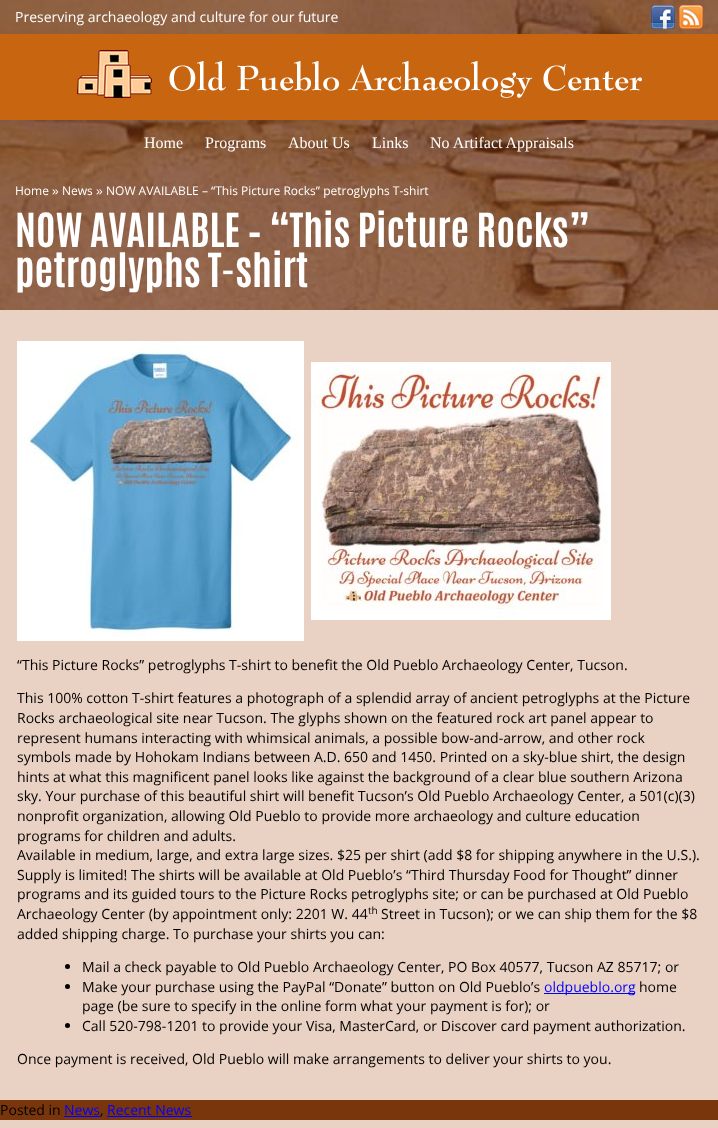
<svg xmlns="http://www.w3.org/2000/svg" width="718" height="1128">
	<rect width="100%" height="100%" fill="#79360C" />
	<image x="0" y="0" width="718" height="310" href="assets/img1.png" />
	<text x="15" y="22" font-family="Open Sans" font-size="14" fill="#FFFFFF">Preserving archaeology and culture for our future</text>
	<image x="651" y="5" width="24" height="24" href="assets/img2.png" />
	<image x="679" y="5" width="24" height="24" href="assets/img3.png" />
	<rect x="0" y="34" width="718" height="86" fill="#C76511" />
	<image x="77" y="50" width="565" height="48" href="assets/img4.png" />
	<g font-family="Liberation Serif" font-size="16" fill="#FFFFFF">
		<text x="144" y="148">Home</text>
		<text x="205" y="148">Programs</text>
		<text x="288" y="148">About Us</text>
		<text x="372" y="148">Links</text>
		<text x="430" y="148">No Artifact Appraisals</text>
	</g>
	<text x="15" y="195" font-family="Open Sans" font-size="12" fill="#FFFFFF">Home</text>
	<text x="52" y="195" font-family="Liberation Sans" font-size="12" fill="#FFFFFF">»</text>
	<text x="62" y="195" font-family="Open Sans" font-size="12" fill="#FFFFFF">News</text>
	<text x="96" y="195" font-family="Liberation Sans" font-size="12" fill="#FFFFFF">»</text>
	<text x="106" y="195" font-family="Open Sans" font-size="12" fill="#FFFFFF">NOW AVAILABLE – “This Picture Rocks” petroglyphs T-shirt</text>
	<g font-family="Antonio" font-size="40" font-weight="700" fill="#FFFFFF">
		<text x="15" y="247">NOW AVAILABLE – “This Picture Rocks”</text>
		<text x="15" y="287">petroglyphs T-shirt</text>
	</g>
	<rect x="0" y="310" width="718" height="790" fill="#E9D1C3" />
	<image x="17" y="341" width="287" height="300" href="assets/img5.png" />
	<image x="311" y="362" width="300" height="258" href="assets/img6.png" />
	<g font-family="Open Sans" font-size="14" fill="#000000">
		<text x="17" y="670">“This Picture Rocks” petroglyphs T-shirt to benefit the Old Pueblo Archaeology Center, Tucson.</text>
		<text x="17" y="703">This 100% cotton T-shirt features a photograph of a splendid array of ancient petroglyphs at the Picture</text>
		<text x="17" y="723">Rocks archaeological site near Tucson. The glyphs shown on the featured rock art panel appear to</text>
		<text x="17" y="743">represent humans interacting with whimsical animals, a possible bow-and-arrow, and other rock</text>
		<text x="17" y="762">symbols made by Hohokam Indians between A.D. 650 and 1450. Printed on a sky-blue shirt, the design</text>
		<text x="17" y="782">hints at what this magnificent panel looks like against the background of a clear blue southern Arizona</text>
		<text x="17" y="801">sky. Your purchase of this beautiful shirt will benefit Tucson’s Old Pueblo Archaeology Center, a 501(c)(3)</text>
		<text x="17" y="821">nonprofit organization, allowing Old Pueblo to provide more archaeology and culture education</text>
		<text x="17" y="841">programs for children and adults.</text>
		<text x="17" y="860">Available in medium, large, and extra large sizes. $25 per shirt (add $8 for shipping anywhere in the U.S.).</text>
		<text x="17" y="880">Supply is limited! The shirts will be available at Old Pueblo’s “Third Thursday Food for Thought” dinner</text>
		<text x="17" y="899">programs and its guided tours to the Picture Rocks petroglyphs site; or can be purchased at Old Pueblo</text>
		<text x="17" y="919">Archaeology Center (by appointment only: 2201 W. 44</text>
	</g>
	<text x="368" y="914" font-family="Open Sans" font-size="10" fill="#000000">th</text>
	<g font-family="Open Sans" font-size="14" fill="#000000">
		<text x="381" y="919">Street in Tucson); or we can ship them for the $8</text>
		<text x="17" y="939">added shipping charge. To purchase your shirts you can:</text>
	</g>
	<circle cx="67.5" cy="966.5" r="2.5" fill="#000000" />
	<text x="82" y="972" font-family="Open Sans" font-size="14" fill="#000000">Mail a check payable to Old Pueblo Archaeology Center, PO Box 40577, Tucson AZ 85717; or</text>
	<circle cx="67.5" cy="986.5" r="2.5" fill="#000000" />
	<text x="82" y="992" font-family="Open Sans" font-size="14" fill="#000000">Make your purchase using the PayPal “Donate” button on Old Pueblo’s</text>
	<rect x="544" y="993" width="91" height="1" fill="#0000FF" />
	<text x="544" y="992" font-family="Open Sans" font-size="14" fill="#0000FF">oldpueblo.org</text>
	<g font-family="Open Sans" font-size="14" fill="#000000">
		<text x="639" y="992">home</text>
		<text x="82" y="1011">page (be sure to specify in the online form what your payment is for); or</text>
	</g>
	<circle cx="67.5" cy="1025.5" r="2.5" fill="#000000" />
	<g font-family="Open Sans" font-size="14" fill="#000000">
		<text x="82" y="1031">Call 520-798-1201 to provide your Visa, MasterCard, or Discover card payment authorization.</text>
		<text x="17" y="1064">Once payment is received, Old Pueblo will make arrangements to deliver your shirts to you.</text>
		<text x="0" y="1115">Posted in</text>
	</g>
	<text x="64" y="1115" font-family="Open Sans" font-size="14" fill="#0000FF">News</text>
	<rect x="64" y="1116" width="36" height="1" fill="#0000FF" />
	<text x="100" y="1115" font-family="Open Sans" font-size="14" fill="#000000">,</text>
	<text x="107" y="1115" font-family="Open Sans" font-size="14" fill="#0000FF">Recent News</text>
	<rect x="107" y="1116" width="85" height="1" fill="#0000FF" />
	<rect x="0" y="1120" width="718" height="8" fill="#E9D1C3" />
</svg>
